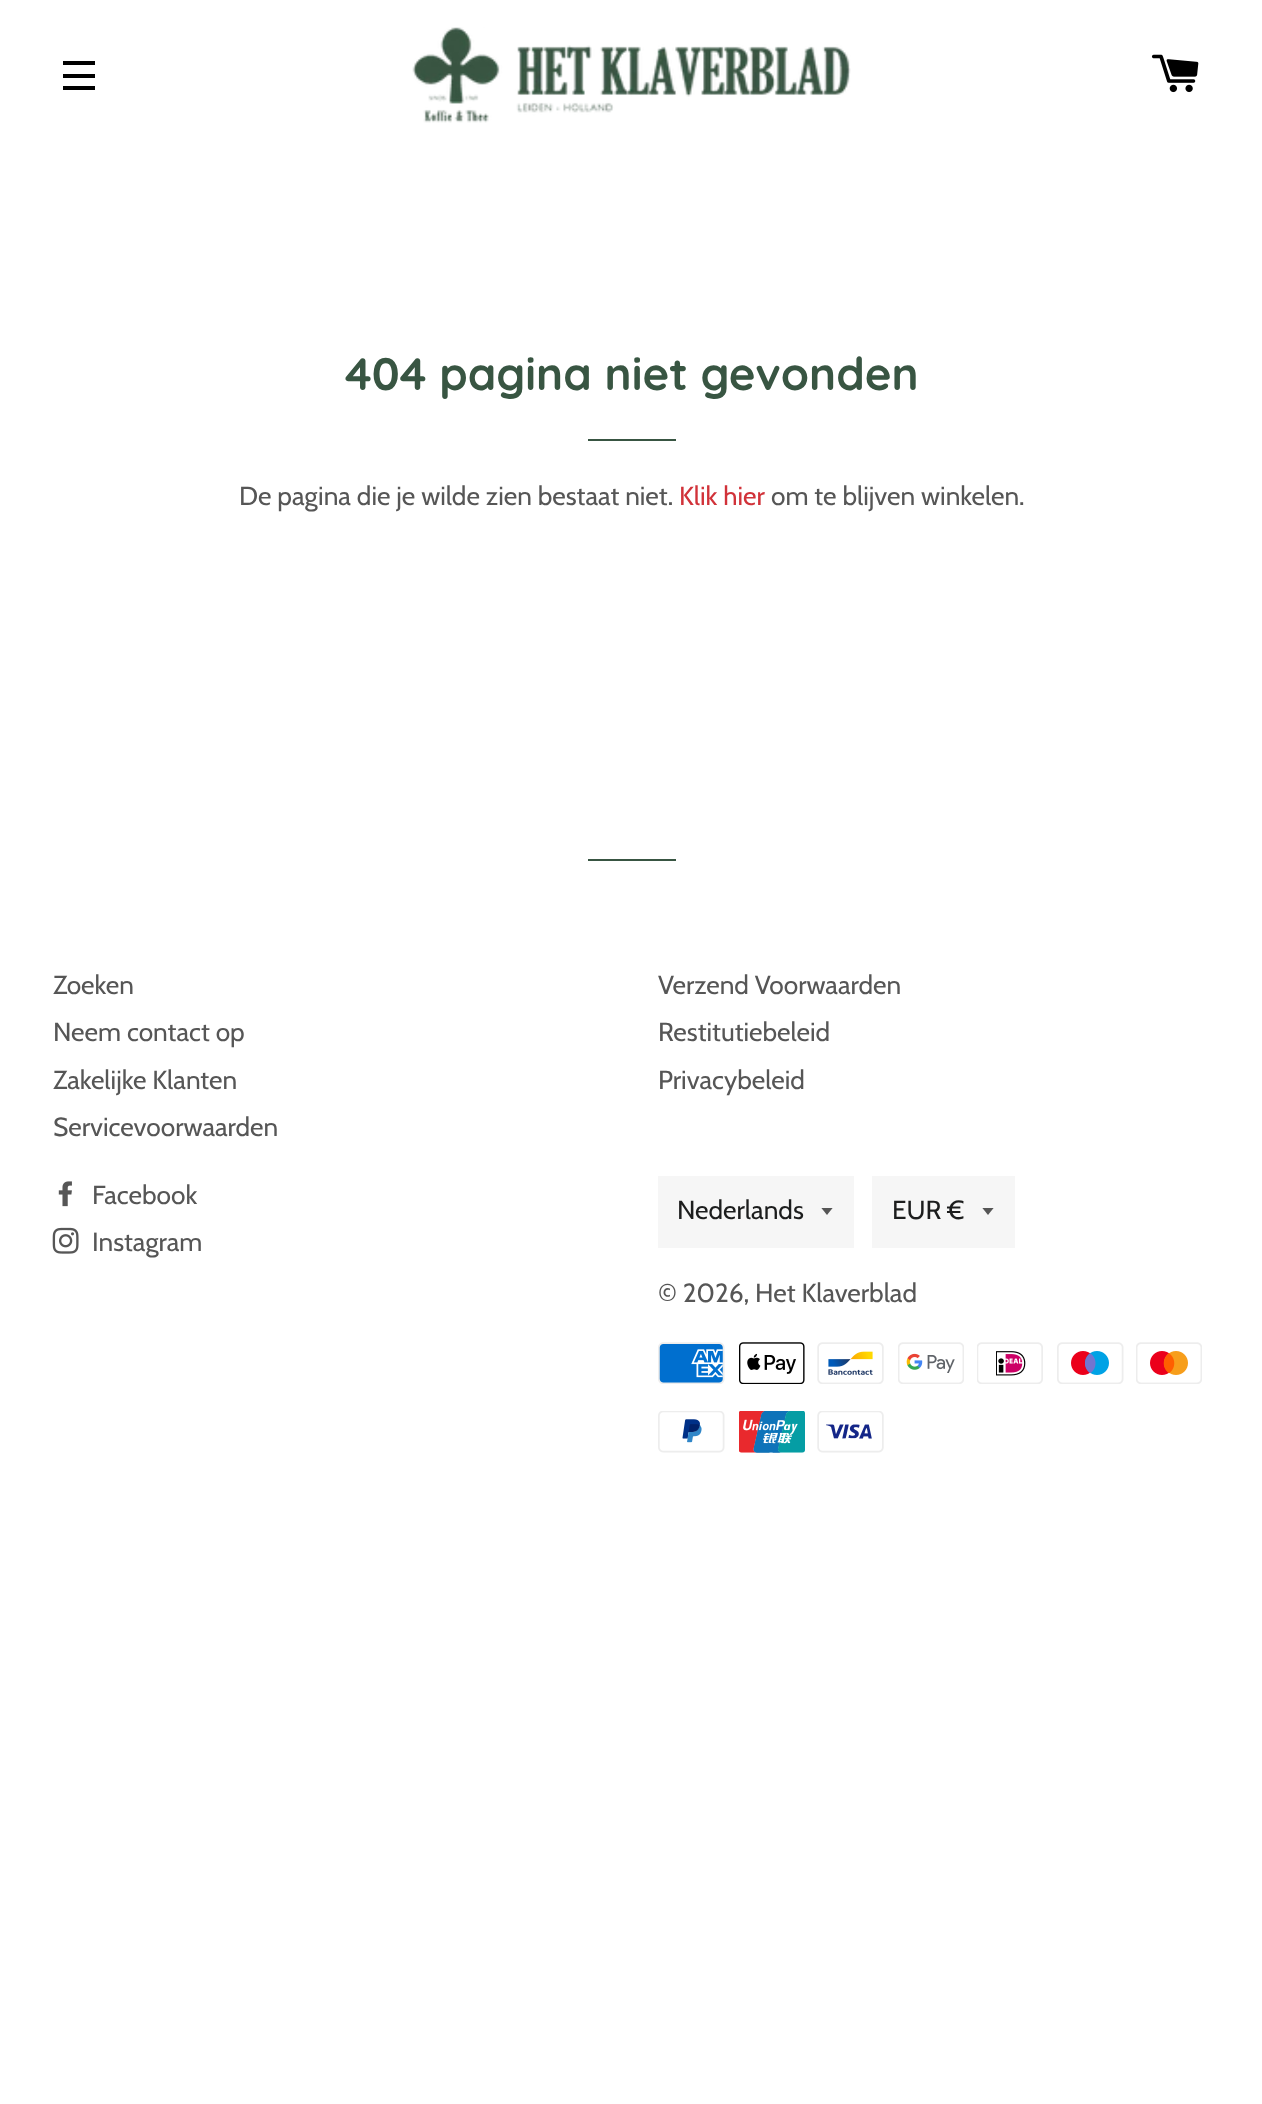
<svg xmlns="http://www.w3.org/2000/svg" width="1262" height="2104">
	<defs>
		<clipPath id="clip1"><rect x="821" y="1208" width="14" height="8" /></clipPath>
		<clipPath id="clip2"><rect x="982" y="1208" width="14" height="8" /></clipPath>
	</defs>
	<rect width="100%" height="100%" fill="#FFFFFF" />
	<rect x="63" y="61" width="32" height="4" fill="#000000" />
	<rect x="63" y="74" width="32" height="4" fill="#000000" />
	<rect x="63" y="86" width="32" height="4" fill="#000000" />
	<image x="412" y="27" width="439" height="96" href="assets/img1.png" />
	<image x="1151" y="54" width="48" height="39" href="assets/img2.png" />
	<text x="345" y="390" font-family="Quicksand" font-size="45.5" font-weight="700" fill="#385542">404 pagina niet gevonden</text>
	<rect x="588" y="439" width="88" height="2" fill="#385542" />
	<text x="239" y="505" font-family="Cabin" font-size="26.25" fill="#565656">De pagina die je wilde zien bestaat niet.</text>
	<text x="679" y="505" font-family="Cabin" font-size="26.25" fill="#D13239">Klik hier</text>
	<text x="771" y="505" font-family="Cabin" font-size="26.25" fill="#565656">om te blijven winkelen.</text>
	<rect x="588" y="859" width="88" height="2" fill="#385542" />
	<g font-family="Cabin" font-size="26.25" fill="#565656">
		<text x="53" y="994">Zoeken</text>
		<text x="53" y="1041">Neem contact op</text>
		<text x="53" y="1089">Zakelijke Klanten</text>
		<text x="53" y="1136">Servicevoorwaarden</text>
		<text x="658" y="994">Verzend Voorwaarden</text>
		<text x="658" y="1041">Restitutiebeleid</text>
		<text x="658" y="1089">Privacybeleid</text>
	</g>
	<image x="58" y="1181" width="14" height="26" href="assets/img3.png" />
	<text x="92" y="1204" font-family="Cabin" font-size="26.25" fill="#565656">Facebook</text>
	<image x="52" y="1227" width="27" height="27" href="assets/img4.png" />
	<text x="92" y="1251" font-family="Cabin" font-size="26.25" fill="#565656">Instagram</text>
	<rect x="658" y="1176" width="196" height="72" fill="#F6F6F6" />
	<g clip-path="url(#clip1)">
		<path d="M821 1207.5L827 1215L833 1207.5Z" fill="#565656" />
	</g>
	<text x="677" y="1219" font-family="Cabin" font-size="26.25" fill="#1C1D1D">Nederlands</text>
	<rect x="872" y="1176" width="143" height="72" fill="#F6F6F6" />
	<g clip-path="url(#clip2)">
		<path d="M982 1207.5L988 1215L994 1207.5Z" fill="#565656" />
	</g>
	<text x="892" y="1219" font-family="Cabin" font-size="26.25" fill="#1C1D1D">EUR €</text>
	<text x="658" y="1302" font-family="Cabin" font-size="26.25" fill="#565656">© 2026, Het Klaverblad</text>
	<image x="658" y="1342" width="67" height="42" href="assets/img5.png" />
	<image x="739" y="1342" width="66" height="42" href="assets/img6.png" />
	<image x="817" y="1342" width="67" height="42" href="assets/img7.png" />
	<image x="898" y="1342" width="66" height="42" href="assets/img8.png" />
	<image x="977" y="1342" width="66" height="42" href="assets/img9.png" />
	<image x="1057" y="1342" width="67" height="42" href="assets/img10.png" />
	<image x="1136" y="1342" width="66" height="42" href="assets/img11.png" />
	<image x="658" y="1411" width="67" height="42" href="assets/img12.png" />
	<image x="739" y="1411" width="66" height="42" href="assets/img13.png" />
	<image x="817" y="1411" width="67" height="42" href="assets/img14.png" />
</svg>
